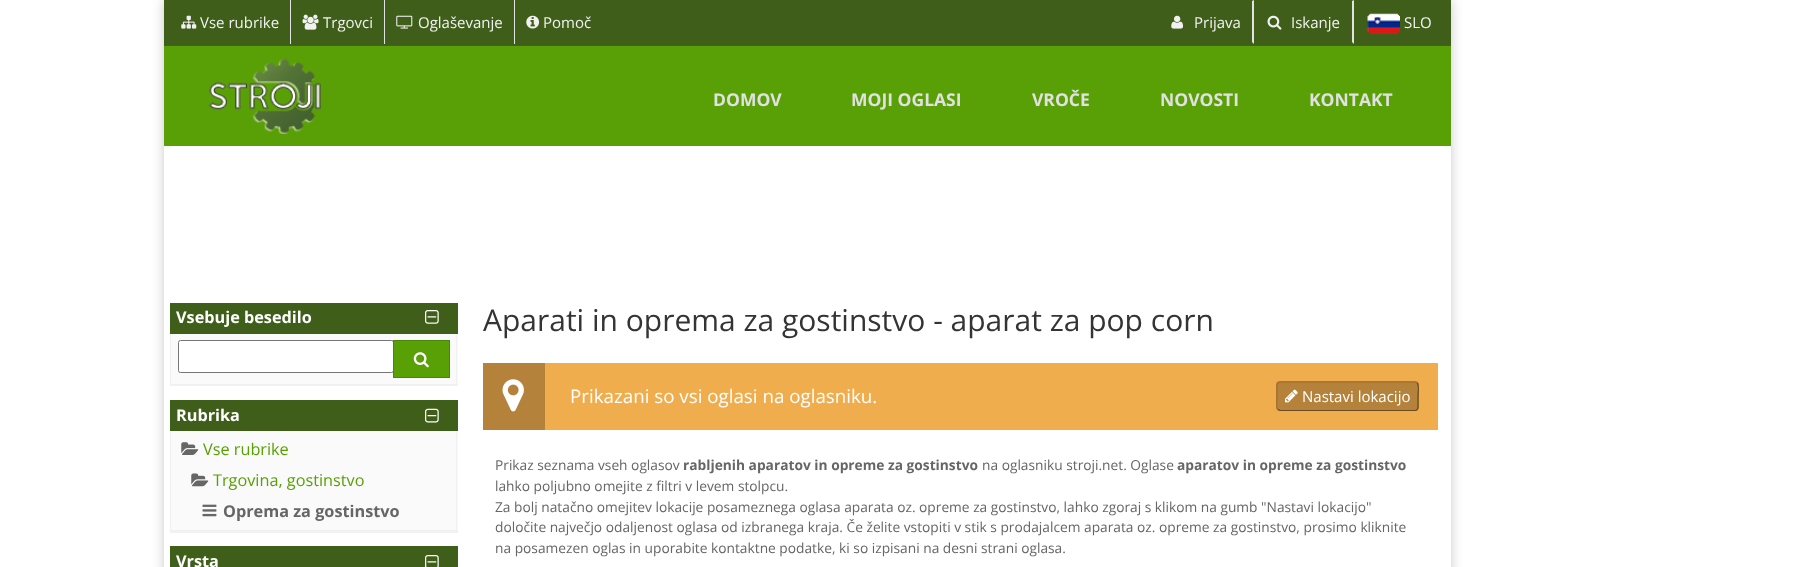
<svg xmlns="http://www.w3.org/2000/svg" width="1814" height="567">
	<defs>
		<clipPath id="clip1"><path d="M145 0H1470V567H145ZM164 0H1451V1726H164Z" clip-rule="evenodd" /></clipPath>
	</defs>
	<rect width="100%" height="100%" fill="#FFFFFF" />
	<g clip-path="url(#clip1)">
		<rect x="164" y="0" width="1287" height="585" fill="#CACACA" filter="blur(6px)" />
	</g>
	<rect x="164" y="0" width="1287" height="45" fill="#3F5E1A" />
	<rect x="290" y="0" width="1" height="44" fill="#E3E3E3" />
	<image x="181" y="15" width="16" height="14" href="assets/img1.png" />
	<text x="200" y="28" font-family="Open Sans" font-size="15" fill="#F1F1F1">Vse rubrike</text>
	<rect x="384" y="0" width="1" height="44" fill="#E3E3E3" />
	<image x="302" y="14" width="17" height="16" href="assets/img2.png" />
	<text x="323" y="28" font-family="Open Sans" font-size="15" fill="#F1F1F1">Trgovci</text>
	<rect x="514" y="0" width="1" height="44" fill="#E3E3E3" />
	<image x="396" y="15" width="17" height="14" href="assets/img3.png" />
	<text x="418" y="28" font-family="Open Sans" font-size="15" fill="#F1F1F1">Oglaševanje</text>
	<image x="526" y="15" width="14" height="14" href="assets/img4.png" />
	<text x="543" y="28" font-family="Open Sans" font-size="15" fill="#F1F1F1">Pomoč</text>
	<path d="M1254 0V44L1252 42V1Z" fill="#E3E3E3" />
	<image x="1171" y="15" width="12" height="14" href="assets/img5.png" />
	<text x="1194" y="28" font-family="Open Sans" font-size="15" fill="#F1F1F1">Prijava</text>
	<path d="M1354 0V44L1352 42V1Z" fill="#E3E3E3" />
	<image x="1267" y="15" width="15" height="15" href="assets/img6.png" />
	<text x="1291" y="28" font-family="Open Sans" font-size="15" fill="#F1F1F1">Iskanje</text>
	<image x="1367" y="13" width="33" height="21" href="assets/img7.png" />
	<text x="1404" y="28" font-family="Open Sans" font-size="15" fill="#F1F1F1">SLO</text>
	<rect x="164" y="46" width="1287" height="100" fill="#599F06" />
	<rect x="164" y="45" width="1287" height="1" fill="#515151" />
	<image x="208" y="58" width="113" height="76" href="assets/img8.png" />
	<g font-family="Open Sans" font-size="17.5" font-weight="700" fill="#E1E1E1">
		<text x="713" y="106">DOMOV</text>
		<text x="851" y="106">MOJI OGLASI</text>
		<text x="1032" y="106">VROČE</text>
		<text x="1160" y="106">NOVOSTI</text>
		<text x="1309" y="106">KONTAKT</text>
	</g>
	<rect x="170" y="304" width="288" height="82" fill="#000000" fill-opacity="0.05" filter="blur(0.5px)" />
	<rect x="170" y="303" width="288" height="31" fill="#3F5E1A" />
	<text x="176" y="323" font-family="Open Sans" font-size="16.25" font-weight="700" fill="#FFFFFF">Vsebuje besedilo</text>
	<image x="425" y="310" width="14" height="14" href="assets/img9.png" />
	<rect x="171" y="334" width="287" height="50" fill="#FAFAFA" />
	<rect x="456" y="334" width="1" height="51" fill="#F0F0F0" />
	<rect x="170" y="384" width="288" height="1" fill="#F0F0F0" />
	<rect x="170" y="334" width="1" height="51" fill="#F0F0F0" />
	<rect x="178.5" y="340.5" width="215" height="32" rx="2" fill="#FFFFFF" stroke="#767676" />
	<rect x="393.5" y="340.5" width="56" height="37" fill="#599F06" stroke="#4C8606" />
	<image x="413" y="352" width="16" height="16" href="assets/img10.png" />
	<rect x="170" y="401" width="288" height="132" fill="#000000" fill-opacity="0.05" filter="blur(0.5px)" />
	<rect x="170" y="400" width="288" height="31" fill="#3F5E1A" />
	<text x="176" y="421" font-family="Open Sans" font-size="16.25" font-weight="700" fill="#FFFFFF">Rubrika</text>
	<image x="425" y="408" width="14" height="15" href="assets/img11.png" />
	<rect x="171" y="431" width="287" height="99" fill="#FAFAFA" />
	<rect x="456" y="431" width="1" height="100" fill="#F0F0F0" />
	<rect x="170" y="530" width="288" height="1" fill="#F0F0F0" />
	<rect x="170" y="431" width="1" height="100" fill="#F0F0F0" />
	<image x="181" y="442" width="18" height="13" href="assets/img12.png" />
	<text x="203" y="455" font-family="Open Sans" font-size="16.25" fill="#599F06">Vse rubrike</text>
	<image x="191" y="473" width="18" height="14" href="assets/img13.png" />
	<text x="213" y="486" font-family="Open Sans" font-size="16.25" fill="#599F06">Trgovina, gostinstvo</text>
	<image x="202" y="504" width="15" height="13" href="assets/img14.png" />
	<text x="223" y="517" font-family="Open Sans" font-size="16.25" font-weight="700" fill="#666666">Oprema za gostinstvo</text>
	<rect x="170" y="546" width="288" height="21" fill="#3F5E1A" />
	<text x="176" y="567" font-family="Open Sans" font-size="16.25" font-weight="700" fill="#FFFFFF">Vrsta</text>
	<image x="425" y="555" width="14" height="12" href="assets/img15.png" />
	<text x="483" y="331" font-family="Open Sans" font-size="30" fill="#343434">Aparati in oprema za gostinstvo - aparat za pop corn</text>
	<rect x="545" y="363" width="893" height="67" fill="#F0AD4E" />
	<rect x="483" y="363" width="62" height="67" fill="#B4823B" />
	<image x="502" y="379" width="22" height="33" href="assets/img16.png" />
	<text x="570" y="403" font-family="Open Sans" font-size="18.75" fill="#FFFFFF">Prikazani so vsi oglasi na oglasniku.</text>
	<rect x="1276" y="381" width="143" height="30" rx="4" fill="#B5823B" />
	<path d="M1417 383C1419.5 385 1418 393.5 1418 396V404C1418 406 1418.5 410.5 1415 410.5H1280L1278 409.5" fill="none" stroke="#6B4A1D" stroke-width="1.2" />
	<path d="M1278 409.5C1275.5 407.5 1277 399 1277 396V389C1277 386.5 1276.5 382 1280 382H1415L1417 383" fill="none" stroke="#A06F2C" stroke-width="1.2" />
	<image x="1285" y="389" width="13" height="14" href="assets/img17.png" />
	<text x="1302" y="402" font-family="Open Sans" font-size="15" fill="#FFFFFF">Nastavi lokacijo</text>
	<text x="495" y="470" font-family="Open Sans" font-size="13.75" fill="#666666">Prikaz seznama vseh oglasov</text>
	<text x="683" y="470" font-family="Open Sans" font-size="13.75" font-weight="700" fill="#666666">rabljenih aparatov in opreme za gostinstvo</text>
	<text x="982" y="470" font-family="Open Sans" font-size="13.75" fill="#666666">na oglasniku stroji.net. Oglase</text>
	<text x="1177" y="470" font-family="Open Sans" font-size="13.75" font-weight="700" fill="#666666">aparatov in opreme za gostinstvo</text>
	<g font-family="Open Sans" font-size="13.75" fill="#666666">
		<text x="495" y="491">lahko poljubno omejite z filtri v levem stolpcu.</text>
		<text x="495" y="512">Za bolj natačno omejitev lokacije posameznega oglasa aparata oz. opreme za gostinstvo, lahko zgoraj s klikom na gumb "Nastavi lokacijo"</text>
		<text x="495" y="532">določite največjo odaljenost oglasa od izbranega kraja. Če želite vstopiti v stik s prodajalcem aparata oz. opreme za gostinstvo, prosimo kliknite</text>
		<text x="495" y="553">na posamezen oglas in uporabite kontaktne podatke, ki so izpisani na desni strani oglasa.</text>
	</g>
</svg>
